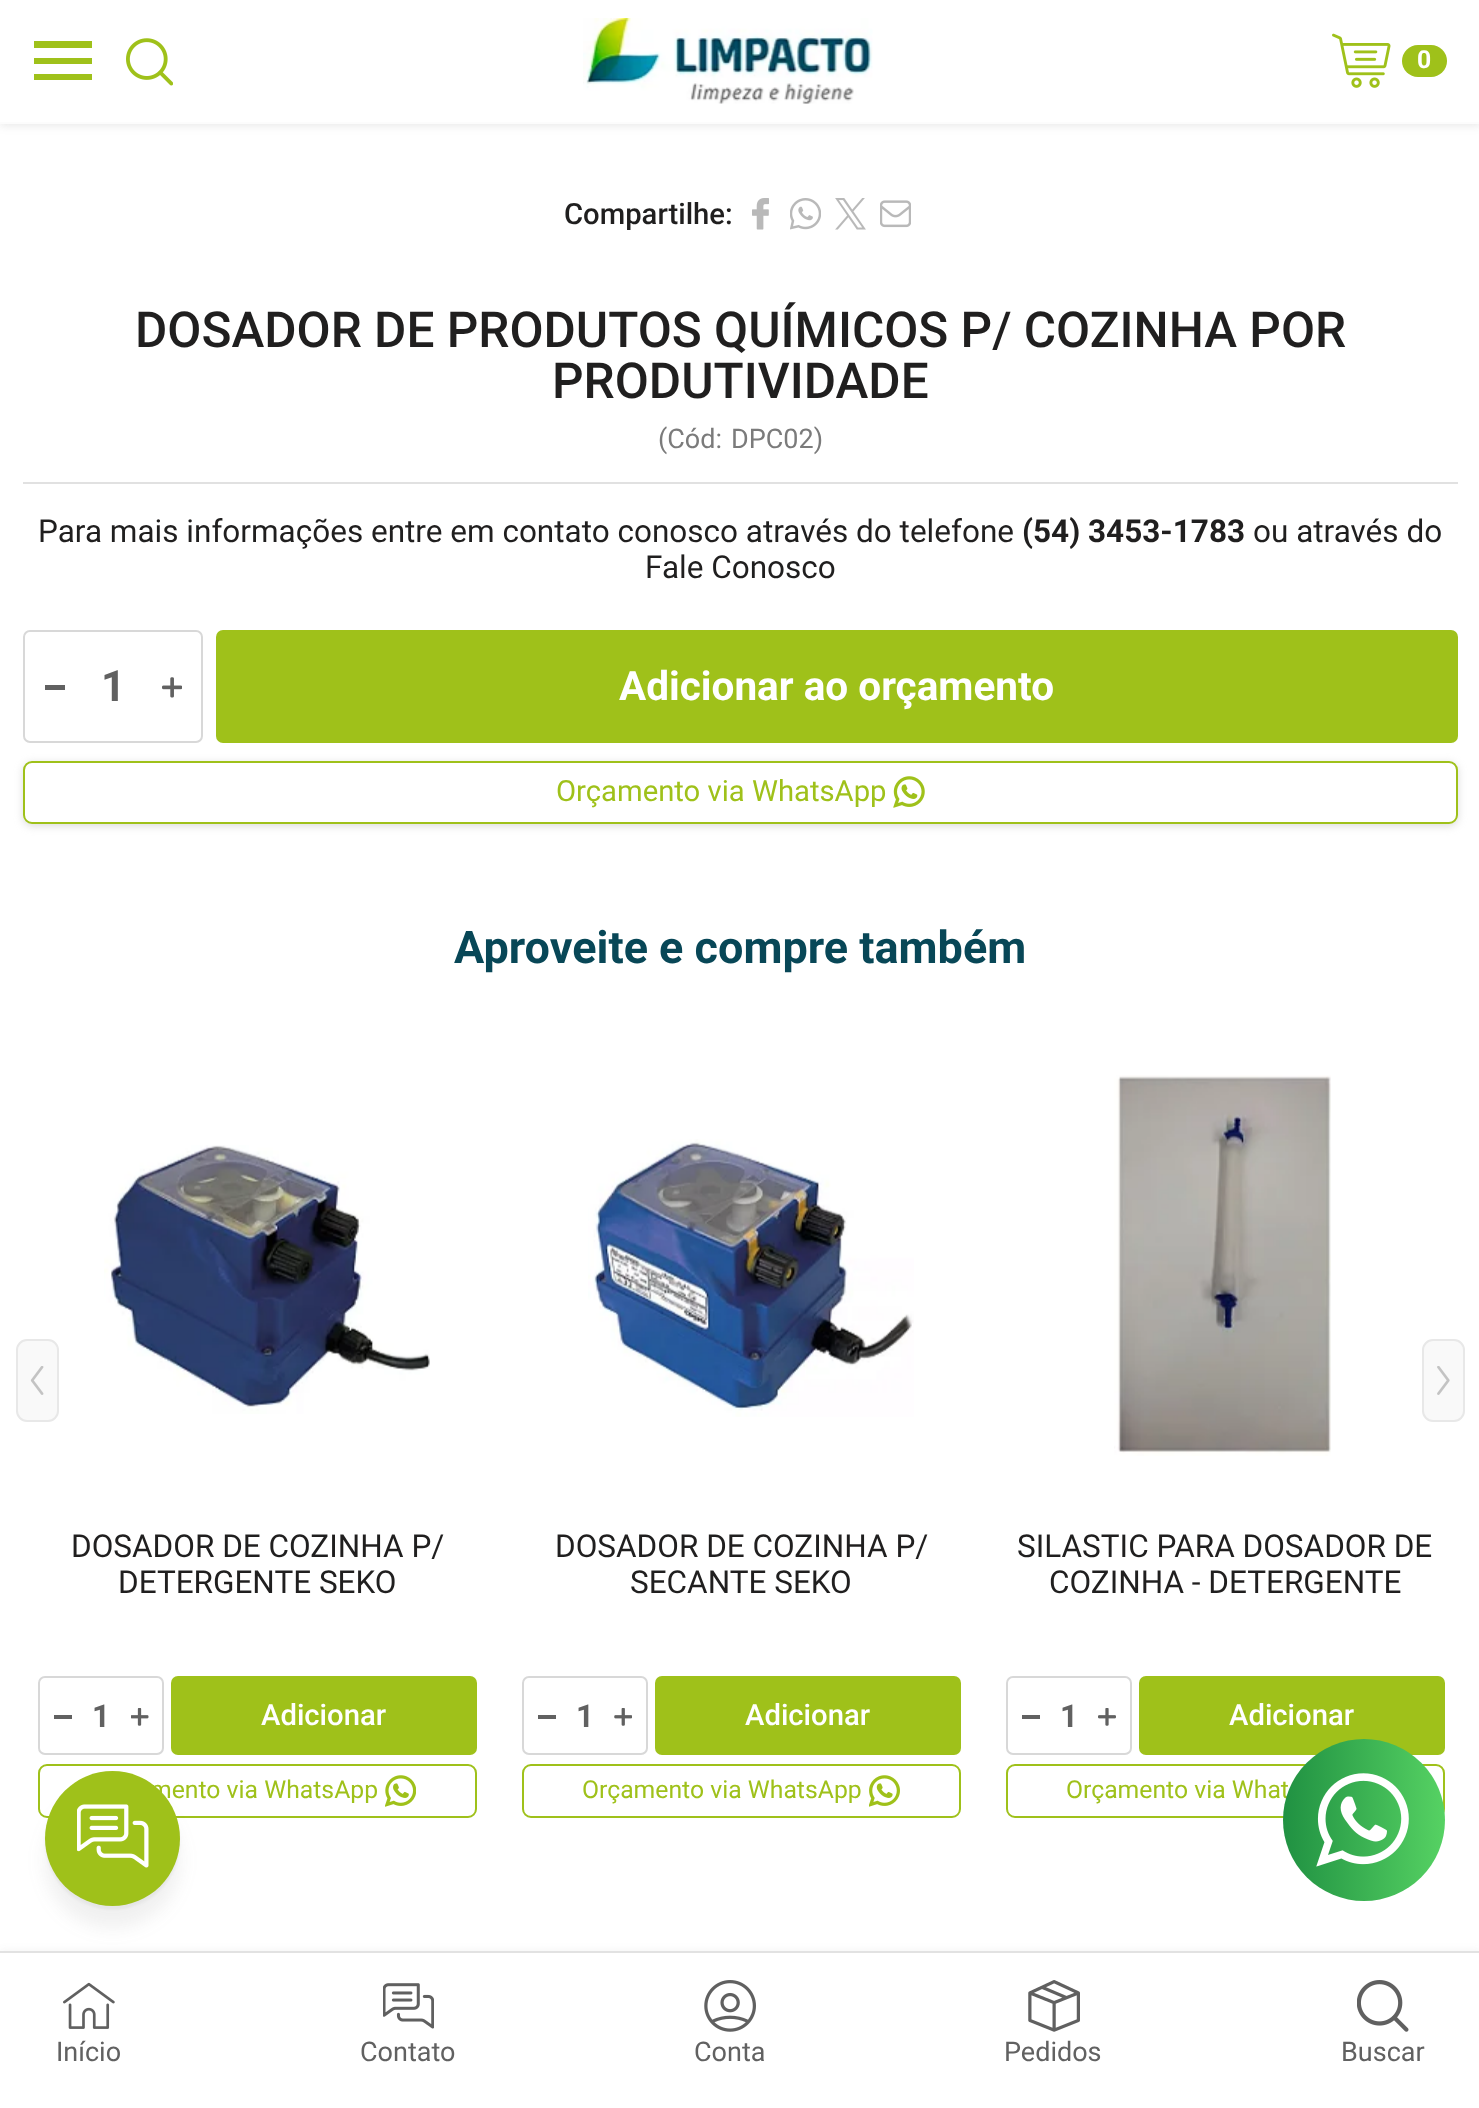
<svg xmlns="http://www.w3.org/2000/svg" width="1479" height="2108">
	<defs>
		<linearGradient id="g1" gradientUnits="userSpaceOnUse" x1="1283" y1="1820" x2="1445" y2="1820"><stop offset="0" stop-color="#209142" /><stop offset="1" stop-color="#56D263" /></linearGradient>
	</defs>
	<rect width="100%" height="100%" fill="#FFFFFF" />
	<rect x="0" y="2" width="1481" height="124" fill="#525252" fill-opacity="0.13" filter="blur(4.5px)" />
	<rect x="0" y="0" width="1479" height="122" fill="#FFFFFF" />
	<rect x="0" y="122" width="1479" height="2" fill="#FCFCFC" />
	<rect x="34" y="74" width="58" height="6" fill="#9FC11A" />
	<rect x="34" y="58" width="58" height="6" fill="#9FC11A" />
	<rect x="34" y="41" width="58" height="7" fill="#9FC11A" />
	<image x="126" y="38" width="47" height="48" href="assets/img1.png" />
	<image x="583" y="18" width="290" height="86" href="assets/img2.png" />
	<image x="1332" y="33" width="59" height="55" href="assets/img3.png" />
	<rect x="1402" y="45" width="45" height="32" rx="16" fill="#9FC11A" />
	<text x="1417" y="68" font-family="Roboto" font-size="24.75" font-weight="700" fill="#FFFFFF">0</text>
	<text x="564" y="224" font-family="Roboto" font-size="29.25" font-weight="500" fill="#201F1F">Compartilhe:</text>
	<image x="752" y="198" width="17" height="32" href="assets/img4.png" />
	<image x="790" y="198" width="31" height="32" href="assets/img5.png" />
	<image x="835" y="198" width="31" height="32" href="assets/img6.png" />
	<image x="880" y="200" width="31" height="28" href="assets/img7.png" />
	<rect x="23" y="482" width="1435" height="2" fill="#E1E1E1" />
	<g font-family="Roboto" font-size="49.5" font-weight="500" fill="#201F1F">
		<text x="135" y="347">DOSADOR DE PRODUTOS QUÍMICOS P/ COZINHA POR</text>
		<text x="552" y="398">PRODUTIVIDADE</text>
	</g>
	<g font-family="Roboto" font-size="27" fill="#7B7B7B">
		<text x="658" y="448">(Cód:</text>
		<text x="731" y="448">DPC02)</text>
	</g>
	<text x="38" y="542" font-family="Roboto" font-size="31.5" fill="#201F1F">Para mais informações entre em contato conosco através do telefone</text>
	<text x="1022" y="542" font-family="Roboto" font-size="31.5" font-weight="700" fill="#201F1F">(54) 3453-1783</text>
	<g font-family="Roboto" font-size="31.5" fill="#201F1F">
		<text x="1253" y="542">ou através do</text>
		<text x="645" y="578">Fale Conosco</text>
	</g>
	<rect x="24" y="631" width="178" height="111" rx="6" fill="none" stroke="#D8D8D8" stroke-width="2" />
	<rect x="45" y="685" width="20" height="5" fill="#616161" />
	<text x="101" y="701" font-family="Roboto" font-size="43" font-weight="700" fill="#616161">1</text>
	<image x="162" y="677" width="20" height="21" href="assets/img8.png" />
	<rect x="216" y="630" width="1242" height="113" rx="7" fill="#9FC11A" />
	<text x="619" y="700" font-family="Roboto" font-size="40.5" font-weight="700" fill="#FFFFFF">Adicionar ao orçamento</text>
	<rect x="23" y="763" width="1435" height="63" rx="9" fill="#B1B1B1" fill-opacity="0.46" filter="blur(4.5px)" />
	<rect x="24" y="762" width="1433" height="61" rx="8" fill="#FFFFFF" stroke="#9FC11A" stroke-width="2" />
	<text x="556" y="801" font-family="Roboto" font-size="29.25" fill="#9FC11A">Orçamento via WhatsApp</text>
	<image x="893" y="776" width="32" height="32" href="assets/img9.png" />
	<text x="454" y="963" font-family="Roboto" font-size="45" font-weight="700" fill="#084757">Aproveite e compre também</text>
	<rect x="17" y="1340" width="41" height="81" rx="10" fill="#F9F9F9" stroke="#E8E8E8" stroke-width="2" />
	<image x="30" y="1366" width="14" height="29" href="assets/img10.png" />
	<rect x="1423" y="1340" width="41" height="81" rx="10" fill="#F9F9F9" stroke="#E8E8E8" stroke-width="2" />
	<image x="1437" y="1366" width="13" height="29" href="assets/img11.png" />
	<image x="104" y="1145" width="326" height="269" href="assets/img12.png" />
	<g font-family="Roboto" font-size="31.5" fill="#201F1F">
		<text x="71" y="1557">DOSADOR DE COZINHA P/</text>
		<text x="118" y="1593">DETERGENTE SEKO</text>
	</g>
	<rect x="39" y="1677" width="124" height="77" rx="6" fill="none" stroke="#D8D8D8" stroke-width="2" />
	<rect x="54" y="1715" width="18" height="4" fill="#616161" />
	<text x="92" y="1727" font-family="Roboto" font-size="31.5" font-weight="700" fill="#616161">1</text>
	<image x="131" y="1708" width="18" height="18" href="assets/img13.png" />
	<rect x="171" y="1676" width="306" height="79" rx="7" fill="#9FC11A" />
	<text x="261" y="1725" font-family="Roboto" font-size="29.25" font-weight="500" fill="#FFFFFF">Adicionar</text>
	<rect x="39" y="1765" width="437" height="52" rx="8" fill="none" stroke="#9FC11A" stroke-width="2" />
	<text x="150" y="1798" font-family="Roboto" font-size="24.75" fill="#9FC11A">mento via WhatsApp</text>
	<image x="385" y="1775" width="31" height="32" href="assets/img14.png" />
	<image x="588" y="1139" width="326" height="278" href="assets/img15.png" />
	<g font-family="Roboto" font-size="31.5" fill="#201F1F">
		<text x="555" y="1557">DOSADOR DE COZINHA P/</text>
		<text x="630" y="1593">SECANTE SEKO</text>
	</g>
	<rect x="523" y="1677" width="124" height="77" rx="6" fill="none" stroke="#D8D8D8" stroke-width="2" />
	<rect x="538" y="1715" width="18" height="4" fill="#616161" />
	<text x="576" y="1727" font-family="Roboto" font-size="31.5" font-weight="700" fill="#616161">1</text>
	<image x="614" y="1708" width="18" height="18" href="assets/img16.png" />
	<rect x="655" y="1676" width="306" height="79" rx="7" fill="#9FC11A" />
	<text x="745" y="1725" font-family="Roboto" font-size="29.25" font-weight="500" fill="#FFFFFF">Adicionar</text>
	<rect x="523" y="1765" width="437" height="52" rx="8" fill="none" stroke="#9FC11A" stroke-width="2" />
	<text x="582" y="1798" font-family="Roboto" font-size="24.75" fill="#9FC11A">Orçamento via WhatsApp</text>
	<image x="869" y="1775" width="31" height="32" href="assets/img17.png" />
	<image x="1114" y="1075" width="217" height="381" href="assets/img18.png" />
	<g font-family="Roboto" font-size="31.5" fill="#201F1F">
		<text x="1017" y="1557">SILASTIC PARA DOSADOR DE</text>
		<text x="1049" y="1593">COZINHA - DETERGENTE</text>
	</g>
	<rect x="1007" y="1677" width="124" height="77" rx="6" fill="none" stroke="#D8D8D8" stroke-width="2" />
	<rect x="1022" y="1715" width="18" height="4" fill="#616161" />
	<text x="1060" y="1727" font-family="Roboto" font-size="31.5" font-weight="700" fill="#616161">1</text>
	<image x="1098" y="1708" width="18" height="18" href="assets/img19.png" />
	<rect x="1139" y="1676" width="306" height="79" rx="7" fill="#9FC11A" />
	<text x="1229" y="1725" font-family="Roboto" font-size="29.25" font-weight="500" fill="#FFFFFF">Adicionar</text>
	<rect x="1007" y="1765" width="437" height="52" rx="8" fill="none" stroke="#9FC11A" stroke-width="2" />
	<text x="1066" y="1798" font-family="Roboto" font-size="24.75" fill="#9FC11A">Orçamento via What</text>
	<rect x="45" y="1793" width="135" height="135" rx="67.5" fill="#676767" fill-opacity="0.1" filter="blur(9px)" />
	<rect x="45" y="1775" width="135" height="135" rx="67.5" fill="#000000" fill-opacity="0.04" filter="blur(1px)" />
	<circle cx="112.5" cy="1838.5" r="67.5" fill="#9FC11A" />
	<image x="77" y="1804" width="72" height="64" href="assets/img20.png" />
	<circle cx="1364" cy="1820" r="81" fill="url(#g1)" />
	<image x="1316" y="1773" width="93" height="94" href="assets/img21.png" />
	<rect x="0" y="1951" width="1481" height="157" fill="#525252" fill-opacity="0.08" filter="blur(4.5px)" />
	<rect x="0" y="1953" width="1479" height="155" fill="#FFFFFF" />
	<rect x="0" y="1951" width="1479" height="2" fill="#E2E2E2" />
	<image x="63" y="1982" width="52" height="47" href="assets/img22.png" />
	<text x="56" y="2061" font-family="Roboto" font-size="27" fill="#616161">Início</text>
	<image x="383" y="1983" width="51" height="46" href="assets/img23.png" />
	<text x="360" y="2061" font-family="Roboto" font-size="27" fill="#616161">Contato</text>
	<image x="704" y="1980" width="52" height="52" href="assets/img24.png" />
	<text x="694" y="2061" font-family="Roboto" font-size="27" fill="#616161">Conta</text>
	<image x="1028" y="1980" width="52" height="52" href="assets/img25.png" />
	<text x="1004" y="2061" font-family="Roboto" font-size="27" fill="#616161">Pedidos</text>
	<image x="1357" y="1980" width="52" height="52" href="assets/img26.png" />
	<text x="1341" y="2061" font-family="Roboto" font-size="27" fill="#616161">Buscar</text>
</svg>
